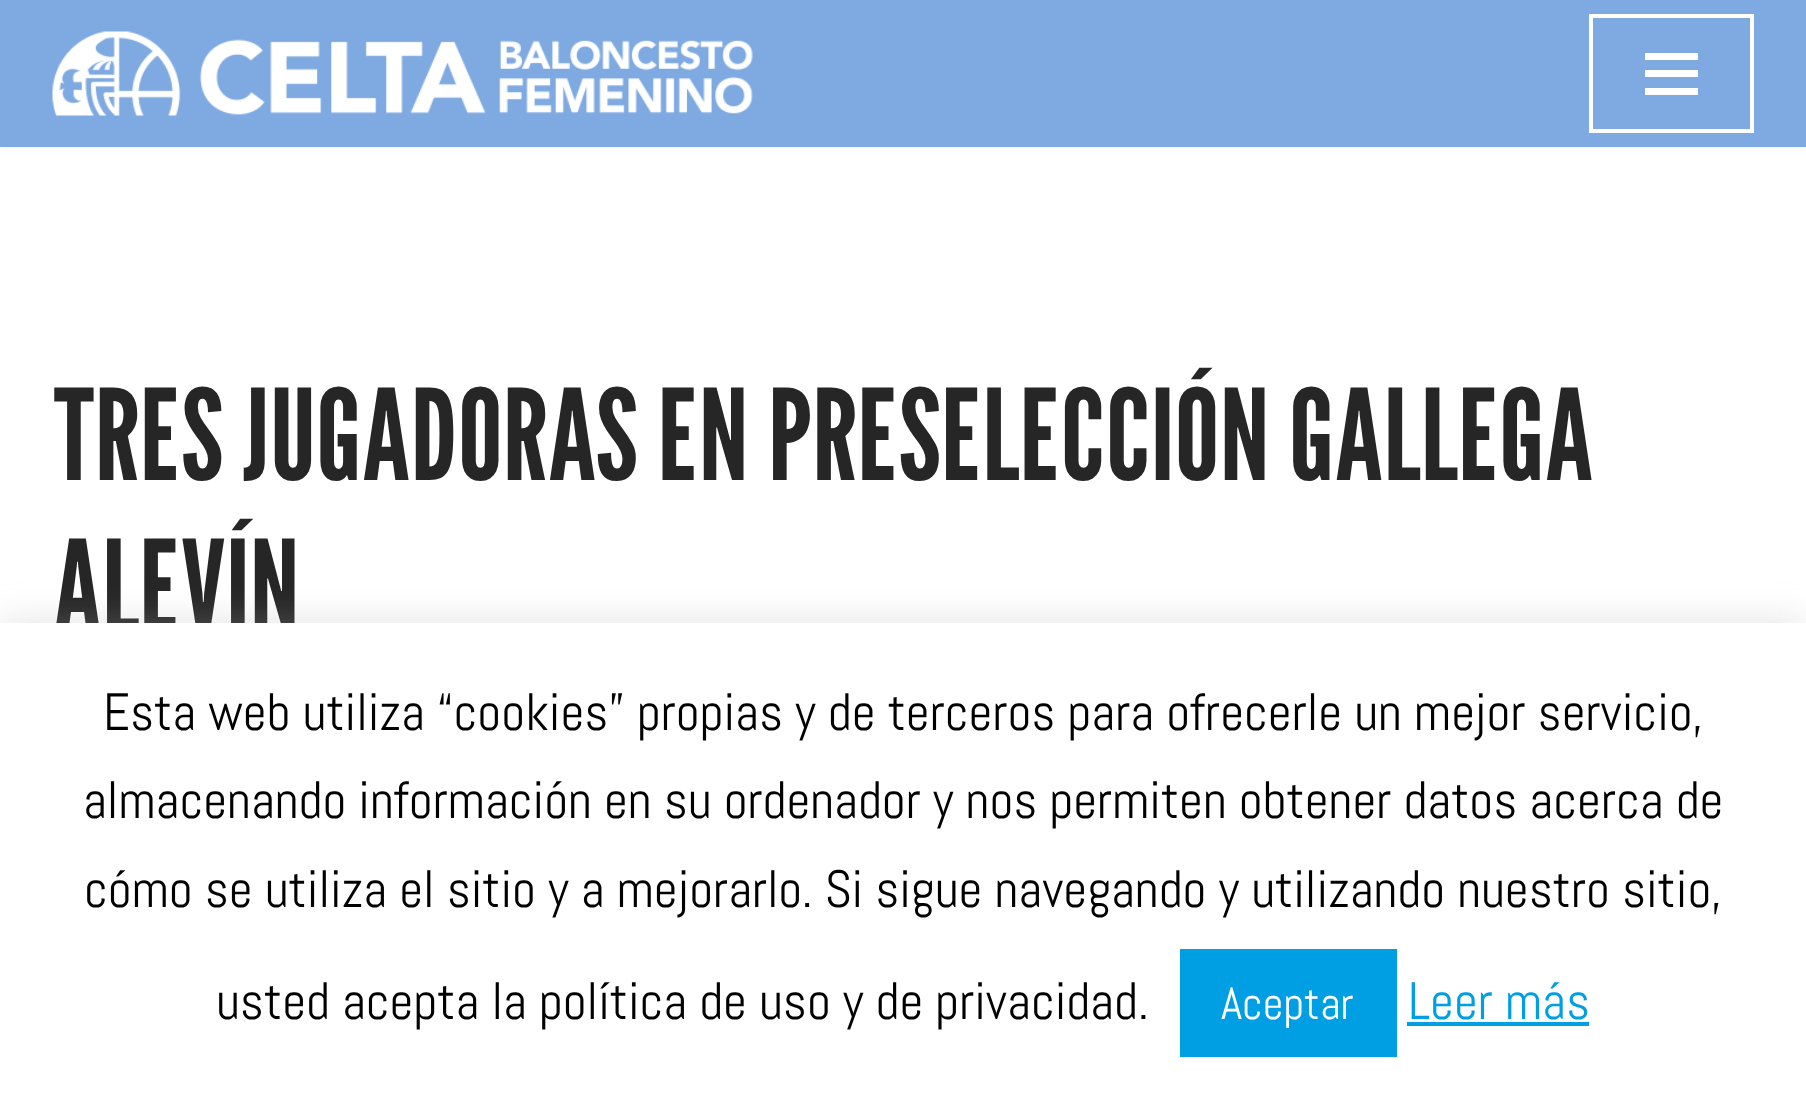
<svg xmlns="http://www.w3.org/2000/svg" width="1806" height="1098">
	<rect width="100%" height="100%" fill="#FFFFFF" />
	<rect x="0" y="-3" width="1806" height="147" fill="#000000" fill-opacity="0.1" filter="blur(5px)" />
	<rect x="0" y="0" width="1806" height="147" fill="#7EA9E1" />
	<image x="52" y="31" width="701" height="85" href="assets/img1.png" />
	<rect x="1591" y="16" width="161" height="115" fill="none" stroke="#FFFFFF" stroke-width="4" />
	<rect x="1645" y="53" width="53" height="7" fill="#FFFFFF" />
	<rect x="1645" y="70" width="53" height="7" fill="#FFFFFF" />
	<rect x="1645" y="88" width="53" height="7" fill="#FFFFFF" />
	<g font-family="League Gothic" font-size="126" fill="#272626">
		<text x="53" y="480">TRES JUGADORAS EN PRESELECCIÓN GALLEGA</text>
		<text x="53" y="631">ALEVÍN</text>
	</g>
	<rect x="0" y="620" width="1806" height="476" fill="#ACABAB" fill-opacity="0.3" filter="blur(17.5px)" />
	<rect x="0" y="623" width="1806" height="475" fill="#FFFFFF" />
	<g font-family="Abel" font-size="52.5" fill="#000000">
		<text x="103" y="730">Esta web utiliza “cookies” propias y de terceros para ofrecerle un mejor servicio,</text>
		<text x="83" y="818">almacenando información en su ordenador y nos permiten obtener datos acerca de</text>
		<text x="84" y="907">cómo se utiliza el sitio y a mejorarlo. Si sigue navegando y utilizando nuestro sitio,</text>
		<text x="216" y="1019">usted acepta la política de uso y de privacidad.</text>
	</g>
	<rect x="1180" y="949" width="217" height="108" fill="#009FE3" />
	<text x="1221" y="1019" font-family="Abel" font-size="45.5" fill="#FFFFFF">Aceptar</text>
	<text x="1408" y="1019" font-family="Abel" font-size="52.5" fill="#009FE3">Leer más</text>
	<rect x="1407" y="1022" width="182" height="4" fill="#009FE3" />
</svg>
